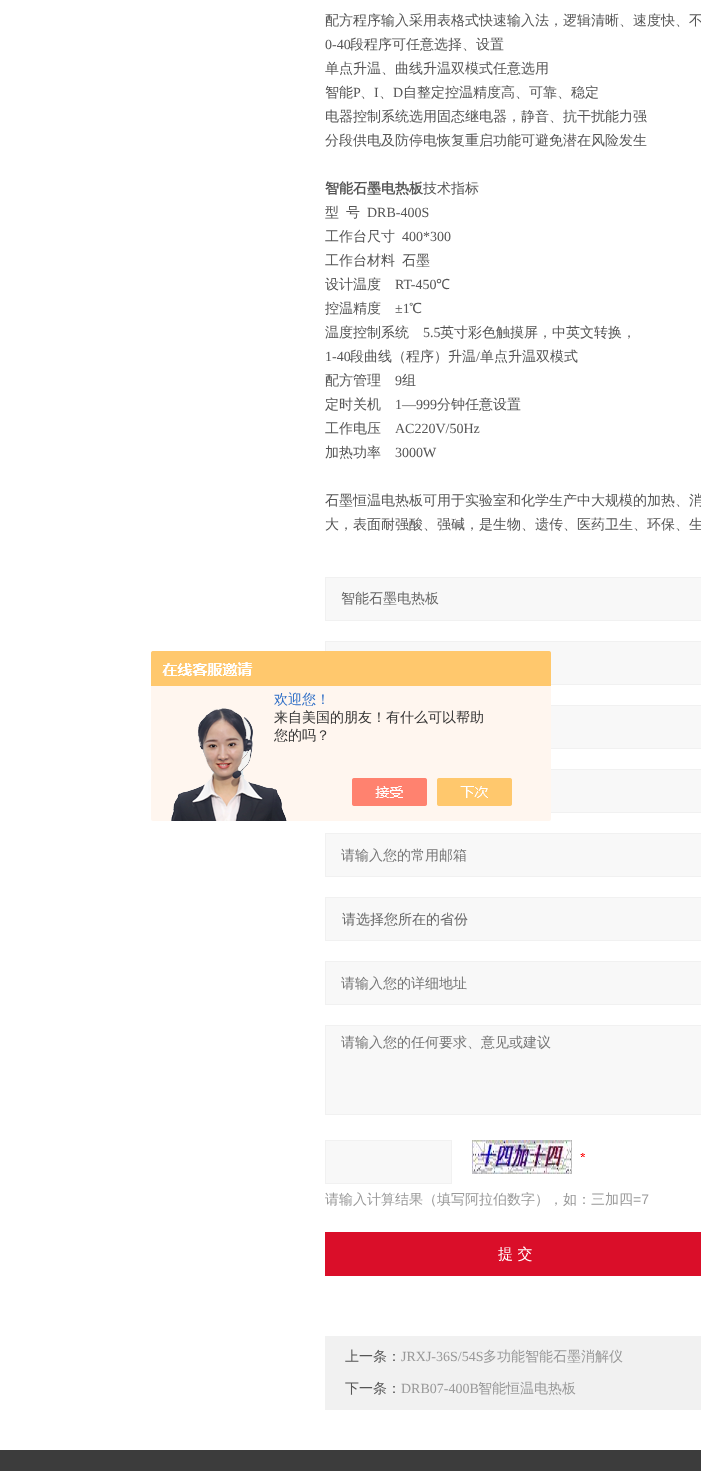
<svg xmlns="http://www.w3.org/2000/svg" width="701" height="1471">
	<rect width="100%" height="100%" fill="#FFFFFF" />
	<text x="325" y="25" font-family="WenQuanYi Zen Hei" font-size="14" font-weight="500" fill="#555555">配方程序输入采用表格式快速输入法，逻辑清晰、速度快、不</text>
	<text x="325" y="49" font-family="Liberation Serif" font-size="14" fill="#555555">0-40</text>
	<g font-family="WenQuanYi Zen Hei" font-size="14" font-weight="500" fill="#555555">
		<text x="350" y="49">段程序可任意选择、设置</text>
		<text x="325" y="73">单点升温、曲线升温双模式任意选用</text>
		<text x="325" y="97">智能</text>
	</g>
	<text x="353" y="97" font-family="Liberation Serif" font-size="14" fill="#555555">P</text>
	<text x="360" y="97" font-family="WenQuanYi Zen Hei" font-size="14" font-weight="500" fill="#555555">、</text>
	<text x="374" y="97" font-family="Liberation Serif" font-size="14" fill="#555555">I</text>
	<text x="379" y="97" font-family="WenQuanYi Zen Hei" font-size="14" font-weight="500" fill="#555555">、</text>
	<text x="393" y="97" font-family="Liberation Serif" font-size="14" fill="#555555">D</text>
	<g font-family="WenQuanYi Zen Hei" font-size="14" font-weight="500" fill="#555555">
		<text x="403" y="97">自整定控温精度高、可靠、稳定</text>
		<text x="325" y="121">电器控制系统选用固态继电器，静音、抗干扰能力强</text>
		<text x="325" y="145">分段供电及防停电恢复重启功能可避免潜在风险发生</text>
	</g>
	<text x="325" y="193" font-family="WenQuanYi Zen Hei" font-size="14" font-weight="700" fill="#555555">智能石墨电热板</text>
	<g font-family="WenQuanYi Zen Hei" font-size="14" font-weight="500" fill="#555555">
		<text x="423" y="193">技术指标</text>
		<text x="325" y="217">型</text>
		<text x="346" y="217">号</text>
	</g>
	<text x="367" y="217" font-family="Liberation Serif" font-size="14" fill="#555555">DRB-400S</text>
	<text x="325" y="241" font-family="WenQuanYi Zen Hei" font-size="14" font-weight="500" fill="#555555">工作台尺寸</text>
	<text x="402" y="241" font-family="Liberation Serif" font-size="14" fill="#555555">400*300</text>
	<g font-family="WenQuanYi Zen Hei" font-size="14" font-weight="500" fill="#555555">
		<text x="325" y="265">工作台材料</text>
		<text x="402" y="265">石墨</text>
		<text x="325" y="289">设计温度</text>
	</g>
	<text x="395" y="289" font-family="Liberation Serif" font-size="14" fill="#555555">RT-450</text>
	<text x="436" y="289" font-family="Noto Sans" font-size="14" fill="#555555">℃</text>
	<text x="325" y="313" font-family="WenQuanYi Zen Hei" font-size="14" font-weight="500" fill="#555555">控温精度</text>
	<text x="395" y="313" font-family="Liberation Serif" font-size="14" fill="#555555">±1</text>
	<g font-family="WenQuanYi Zen Hei" font-size="14" font-weight="500" fill="#555555">
		<text x="409" y="313">℃</text>
		<text x="325" y="337">温度控制系统</text>
	</g>
	<text x="423" y="337" font-family="Liberation Serif" font-size="14" fill="#555555">5.5</text>
	<text x="440" y="337" font-family="WenQuanYi Zen Hei" font-size="14" font-weight="500" fill="#555555">英寸彩色触摸屏，中英文转换，</text>
	<text x="325" y="361" font-family="Liberation Serif" font-size="14" fill="#555555">1-40</text>
	<text x="350" y="361" font-family="WenQuanYi Zen Hei" font-size="14" font-weight="500" fill="#555555">段曲线（程序）升温</text>
	<text x="476" y="361" font-family="Liberation Serif" font-size="14" fill="#555555">/</text>
	<g font-family="WenQuanYi Zen Hei" font-size="14" font-weight="500" fill="#555555">
		<text x="480" y="361">单点升温双模式</text>
		<text x="325" y="385">配方管理</text>
	</g>
	<text x="395" y="385" font-family="Liberation Serif" font-size="14" fill="#555555">9</text>
	<g font-family="WenQuanYi Zen Hei" font-size="14" font-weight="500" fill="#555555">
		<text x="402" y="385">组</text>
		<text x="325" y="409">定时关机</text>
	</g>
	<text x="395" y="409" font-family="Liberation Serif" font-size="14" fill="#555555">1—999</text>
	<g font-family="WenQuanYi Zen Hei" font-size="14" font-weight="500" fill="#555555">
		<text x="437" y="409">分钟任意设置</text>
		<text x="325" y="433">工作电压</text>
	</g>
	<text x="395" y="433" font-family="Liberation Serif" font-size="14" fill="#555555">AC220V/50Hz</text>
	<text x="325" y="457" font-family="WenQuanYi Zen Hei" font-size="14" font-weight="500" fill="#555555">加热功率</text>
	<text x="395" y="457" font-family="Liberation Serif" font-size="14" fill="#555555">3000W</text>
	<g font-family="WenQuanYi Zen Hei" font-size="14" font-weight="500" fill="#555555">
		<text x="325" y="505">石墨恒温电热板可用于实验室和化学生产中大规模的加热、消</text>
		<text x="325" y="529">大，表面耐强酸、强碱，是生物、遗传、医药卫生、环保、生</text>
	</g>
	<rect x="325.5" y="577.5" width="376" height="43" fill="#F8F8F8" stroke="#F1F1F1" />
	<text x="341" y="603" font-family="WenQuanYi Zen Hei" font-size="14" font-weight="500" fill="#666666">智能石墨电热板</text>
	<rect x="325.5" y="641.5" width="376" height="43" fill="#F8F8F8" stroke="#F1F1F1" />
	<rect x="551" y="706" width="150" height="42" fill="#F8F8F8" />
	<rect x="325.5" y="705.5" width="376" height="43" fill="none" stroke="#F1F1F1" />
	<rect x="551" y="770" width="150" height="42" fill="#F8F8F8" />
	<rect x="325.5" y="769.5" width="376" height="43" fill="none" stroke="#F1F1F1" />
	<rect x="325.5" y="833.5" width="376" height="43" fill="#F8F8F8" stroke="#F1F1F1" />
	<text x="341" y="860" font-family="WenQuanYi Zen Hei" font-size="14" font-weight="500" fill="#757575">请输入您的常用邮箱</text>
	<rect x="325.5" y="897.5" width="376" height="43" fill="#F8F8F8" stroke="#F1F1F1" />
	<text x="342" y="924" font-family="WenQuanYi Zen Hei" font-size="14" font-weight="500" fill="#666666">请选择您所在的省份</text>
	<rect x="325.5" y="961.5" width="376" height="43" fill="#F8F8F8" stroke="#F1F1F1" />
	<text x="341" y="988" font-family="WenQuanYi Zen Hei" font-size="14" font-weight="500" fill="#757575">请输入您的详细地址</text>
	<rect x="325.5" y="1025.5" width="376" height="89" fill="#F8F8F8" stroke="#F1F1F1" />
	<text x="341" y="1047" font-family="WenQuanYi Zen Hei" font-size="14" font-weight="500" fill="#757575">请输入您的任何要求、意见或建议</text>
	<rect x="325.5" y="1140.5" width="126" height="43" fill="#F8F8F8" stroke="#F1F1F1" />
	<image x="580" y="1153" width="5" height="4" href="assets/img1.png" />
	<image x="472" y="1140" width="100" height="34" href="assets/img2.png" />
	<text x="325" y="1204" font-family="WenQuanYi Zen Hei" font-size="14" font-weight="500" fill="#999999">请输入计算结果（填写阿拉伯数字），如：三加四</text>
	<text x="633" y="1204" font-family="Liberation Sans" font-size="14" fill="#999999">=7</text>
	<rect x="325" y="1232" width="376" height="44" fill="#DA0E29" />
	<text x="498" y="1259" font-family="WenQuanYi Zen Hei" font-size="15" font-weight="500" fill="#FFFFFF">提 交</text>
	<rect x="325" y="1336" width="376" height="74" fill="#F1F1F1" />
	<text x="345" y="1361" font-family="WenQuanYi Zen Hei" font-size="14" font-weight="500" fill="#555555">上一条：</text>
	<text x="401" y="1361" font-family="Liberation Serif" font-size="14" fill="#999999">JRXJ-36S/54S</text>
	<text x="483" y="1361" font-family="WenQuanYi Zen Hei" font-size="14" font-weight="500" fill="#999999">多功能智能石墨消解仪</text>
	<text x="345" y="1393" font-family="WenQuanYi Zen Hei" font-size="14" font-weight="500" fill="#555555">下一条：</text>
	<text x="401" y="1393" font-family="Liberation Serif" font-size="14" fill="#999999">DRB07-400B</text>
	<text x="478" y="1393" font-family="WenQuanYi Zen Hei" font-size="14" font-weight="500" fill="#999999">智能恒温电热板</text>
	<image x="151" y="651" width="400" height="170" href="assets/img3.png" />
	<text x="274" y="704" font-family="WenQuanYi Zen Hei" font-size="14" font-weight="500" fill="#2E6EC6">欢迎您！</text>
	<g font-family="WenQuanYi Zen Hei" font-size="14" font-weight="500" fill="#333333">
		<text x="274" y="722">来自美国的朋友！有什么可以帮助</text>
		<text x="274" y="740">您的吗？</text>
	</g>
	<rect x="0" y="1450" width="701" height="21" fill="#3C3C3C" />
</svg>
